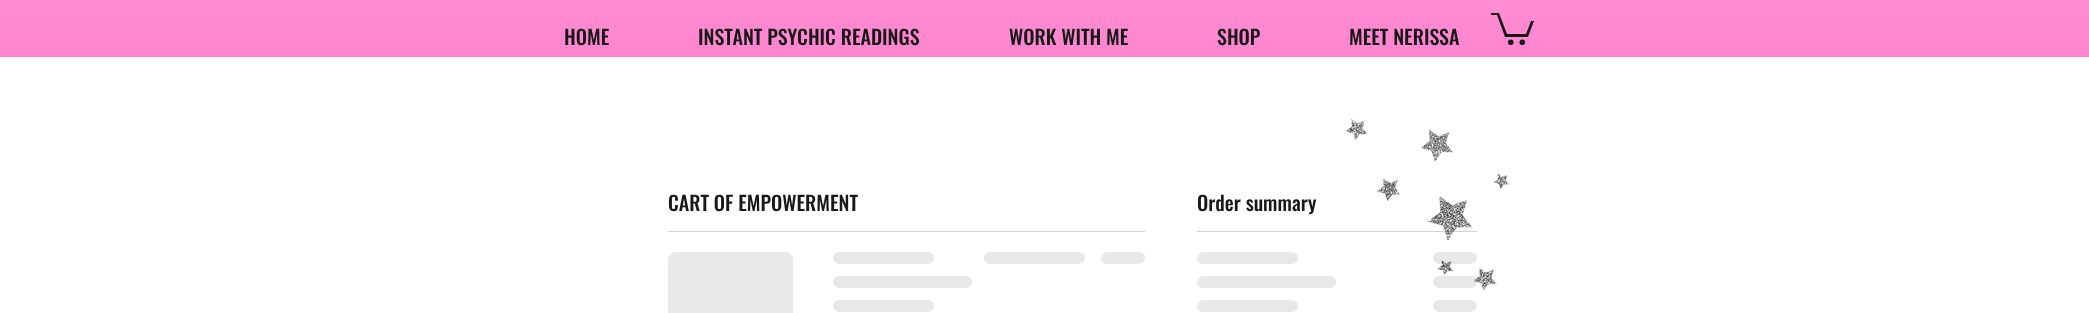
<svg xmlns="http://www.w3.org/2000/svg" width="2089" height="313">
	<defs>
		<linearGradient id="g1" gradientUnits="userSpaceOnUse" x1="668" y1="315" x2="1168" y2="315"><stop offset="0.25" stop-color="#E8E8E8" /><stop offset="0.37" stop-color="#D1D1D1" /><stop offset="0.63" stop-color="#E8E8E8" /></linearGradient>
		<linearGradient id="g2" gradientUnits="userSpaceOnUse" x1="833" y1="258" x2="1237" y2="258"><stop offset="0.25" stop-color="#E8E8E8" /><stop offset="0.37" stop-color="#D1D1D1" /><stop offset="0.63" stop-color="#E8E8E8" /></linearGradient>
		<linearGradient id="g3" gradientUnits="userSpaceOnUse" x1="833" y1="282" x2="1389" y2="282"><stop offset="0.25" stop-color="#E8E8E8" /><stop offset="0.37" stop-color="#D1D1D1" /><stop offset="0.63" stop-color="#E8E8E8" /></linearGradient>
		<linearGradient id="g4" gradientUnits="userSpaceOnUse" x1="833" y1="306" x2="1237" y2="306"><stop offset="0.25" stop-color="#E8E8E8" /><stop offset="0.37" stop-color="#D1D1D1" /><stop offset="0.63" stop-color="#E8E8E8" /></linearGradient>
		<linearGradient id="g5" gradientUnits="userSpaceOnUse" x1="984" y1="258" x2="1388" y2="258"><stop offset="0.25" stop-color="#E8E8E8" /><stop offset="0.37" stop-color="#D1D1D1" /><stop offset="0.63" stop-color="#E8E8E8" /></linearGradient>
		<linearGradient id="g6" gradientUnits="userSpaceOnUse" x1="1101" y1="258" x2="1277" y2="258"><stop offset="0.25" stop-color="#E8E8E8" /><stop offset="0.37" stop-color="#D1D1D1" /><stop offset="0.63" stop-color="#E8E8E8" /></linearGradient>
		<linearGradient id="g7" gradientUnits="userSpaceOnUse" x1="1197" y1="258" x2="1601" y2="258"><stop offset="0.25" stop-color="#E8E8E8" /><stop offset="0.37" stop-color="#D1D1D1" /><stop offset="0.63" stop-color="#E8E8E8" /></linearGradient>
		<linearGradient id="g8" gradientUnits="userSpaceOnUse" x1="1433" y1="258" x2="1609" y2="258"><stop offset="0.25" stop-color="#E8E8E8" /><stop offset="0.37" stop-color="#D1D1D1" /><stop offset="0.63" stop-color="#E8E8E8" /></linearGradient>
		<linearGradient id="g9" gradientUnits="userSpaceOnUse" x1="1197" y1="282" x2="1753" y2="282"><stop offset="0.25" stop-color="#E8E8E8" /><stop offset="0.37" stop-color="#D1D1D1" /><stop offset="0.63" stop-color="#E8E8E8" /></linearGradient>
		<linearGradient id="g10" gradientUnits="userSpaceOnUse" x1="1433" y1="282" x2="1609" y2="282"><stop offset="0.25" stop-color="#E8E8E8" /><stop offset="0.37" stop-color="#D1D1D1" /><stop offset="0.63" stop-color="#E8E8E8" /></linearGradient>
		<linearGradient id="g11" gradientUnits="userSpaceOnUse" x1="1197" y1="306" x2="1601" y2="306"><stop offset="0.25" stop-color="#E8E8E8" /><stop offset="0.37" stop-color="#D1D1D1" /><stop offset="0.63" stop-color="#E8E8E8" /></linearGradient>
		<linearGradient id="g12" gradientUnits="userSpaceOnUse" x1="1433" y1="306" x2="1609" y2="306"><stop offset="0.25" stop-color="#E8E8E8" /><stop offset="0.37" stop-color="#D1D1D1" /><stop offset="0.63" stop-color="#E8E8E8" /></linearGradient>
	</defs>
	<rect width="100%" height="100%" fill="#FFFFFF" />
	<rect x="0" y="0" width="2089" height="57" fill="#FF66C4" />
	<image x="0" y="0" width="2089" height="57" href="assets/img1.png" />
	<g font-family="Oswald" font-size="20" font-weight="500" fill="#181818">
		<text x="564" y="45">HOME</text>
		<text x="698" y="45">INSTANT PSYCHIC READINGS</text>
		<text x="1009" y="45">WORK WITH ME</text>
		<text x="1217" y="45">SHOP</text>
		<text x="1349" y="45">MEET NERISSA</text>
	</g>
	<path d="M1534 21L1528 37H1505L1497 15H1491V13H1499L1507 34H1526L1531 21" fill="#181818" />
	<circle cx="1522.3" cy="42.3" r="2.8" fill="#181818" />
	<circle cx="1510.7" cy="42.3" r="2.8" fill="#181818" />
	<rect x="668" y="231" width="477" height="1" fill="#D1D1D1" />
	<text x="668" y="211" font-family="Oswald" font-size="20" font-weight="500" fill="#181818">CART OF EMPOWERMENT</text>
	<rect x="668" y="252" width="125" height="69" rx="8" fill="url(#g1)" />
	<rect x="833" y="252" width="101" height="12" rx="6" fill="url(#g2)" />
	<rect x="833" y="276" width="139" height="12" rx="6" fill="url(#g3)" />
	<rect x="833" y="300" width="101" height="12" rx="6" fill="url(#g4)" />
	<rect x="984" y="252" width="101" height="12" rx="6" fill="url(#g5)" />
	<rect x="1101" y="252" width="44" height="12" rx="6" fill="url(#g6)" />
	<rect x="1197" y="231" width="280" height="1" fill="#D1D1D1" />
	<text x="1197" y="211" font-family="Oswald" font-size="20" font-weight="500" fill="#181818">Order summary</text>
	<rect x="1197" y="252" width="101" height="12" rx="6" fill="url(#g7)" />
	<rect x="1433" y="252" width="44" height="12" rx="6" fill="url(#g8)" />
	<rect x="1197" y="276" width="139" height="12" rx="6" fill="url(#g9)" />
	<rect x="1433" y="276" width="44" height="12" rx="6" fill="url(#g10)" />
	<rect x="1197" y="300" width="101" height="12" rx="6" fill="url(#g11)" />
	<rect x="1433" y="300" width="44" height="12" rx="6" fill="url(#g12)" />
	<image x="1345" y="119" width="164" height="172" href="assets/img2.png" />
</svg>
